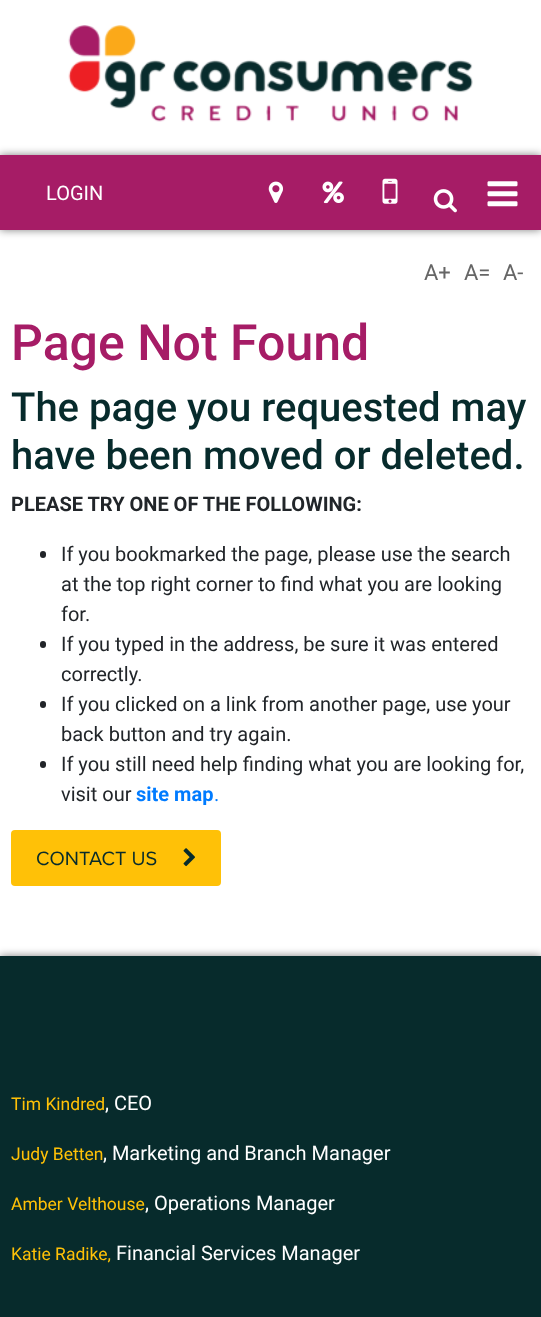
<svg xmlns="http://www.w3.org/2000/svg" width="541" height="1317">
	<rect width="100%" height="100%" fill="#FFFFFF" />
	<image x="68" y="25" width="405" height="97" href="assets/img1.png" />
	<rect x="0" y="155" width="541" height="75" fill="#000000" fill-opacity="0.5" filter="blur(4.5px)" />
	<rect x="0" y="155" width="541" height="75" fill="#A61C66" />
	<image x="268" y="181" width="15" height="22" href="assets/img2.png" />
	<image x="322" y="181" width="22" height="23" href="assets/img3.png" />
	<image x="382" y="178" width="16" height="26" href="assets/img4.png" />
	<image x="433" y="189" width="24" height="24" href="assets/img5.png" />
	<image x="487" y="181" width="31" height="26" href="assets/img6.png" />
	<text x="46" y="200" font-family="Roboto" font-size="20" fill="#FFFFFF">LOGIN</text>
	<g font-family="Roboto" font-size="22" fill="#666666">
		<text x="424" y="280">A+</text>
		<text x="464" y="280">A=</text>
		<text x="503" y="280">A-</text>
	</g>
	<text x="11" y="360" font-family="Roboto" font-size="50" font-weight="500" fill="#A61C66">Page Not Found</text>
	<g font-family="Roboto" font-size="40" font-weight="500" fill="#072B2C">
		<text x="11" y="421">The page you requested may</text>
		<text x="11" y="469">have been moved or deleted.</text>
	</g>
	<text x="11" y="511" font-family="Roboto" font-size="20" font-weight="700" fill="#212529">PLEASE TRY ONE OF THE FOLLOWING:</text>
	<rect x="40" y="551" width="6" height="7" rx="3" fill="#212529" />
	<g font-family="Roboto" font-size="20" fill="#212529">
		<text x="61" y="561">If you bookmarked the page, please use the search</text>
		<text x="61" y="591">at the top right corner to find what you are looking</text>
		<text x="61" y="621">for.</text>
	</g>
	<rect x="40" y="641" width="6" height="7" rx="3" fill="#212529" />
	<g font-family="Roboto" font-size="20" fill="#212529">
		<text x="61" y="651">If you typed in the address, be sure it was entered</text>
		<text x="61" y="681">correctly.</text>
	</g>
	<rect x="40" y="701" width="6" height="7" rx="3" fill="#212529" />
	<g font-family="Roboto" font-size="20" fill="#212529">
		<text x="61" y="711">If you clicked on a link from another page, use your</text>
		<text x="61" y="741">back button and try again.</text>
	</g>
	<rect x="40" y="761" width="6" height="7" rx="3" fill="#212529" />
	<g font-family="Roboto" font-size="20" fill="#212529">
		<text x="61" y="771">If you still need help finding what you are looking for,</text>
		<text x="61" y="801">visit our</text>
	</g>
	<text x="136" y="801" font-family="Roboto" font-size="20" font-weight="700" fill="#007BFF">site map</text>
	<text x="214" y="801" font-family="Roboto" font-size="20" fill="#007BFF">.</text>
	<rect x="11" y="830" width="210" height="56" rx="4" fill="#FFC107" />
	<text x="36" y="865" font-family="Proxima Nova" font-size="20" fill="#072B2C">CONTACT US</text>
	<image x="183" y="848" width="12" height="19" href="assets/img7.png" />
	<rect x="0" y="956" width="541" height="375" fill="#000000" fill-opacity="0.5" filter="blur(4.5px)" />
	<rect x="0" y="956" width="541" height="361" fill="#072B2C" />
	<text x="11" y="1110" font-family="Roboto" font-size="17.5" fill="#FFC107">Tim Kindred</text>
	<text x="105" y="1110" font-family="Roboto" font-size="20" fill="#FFFFFF">, CEO</text>
	<text x="11" y="1160" font-family="Roboto" font-size="17.5" fill="#FFC107">Judy Betten</text>
	<text x="103" y="1160" font-family="Roboto" font-size="20" fill="#FFFFFF">, Marketing and Branch Manager</text>
	<text x="11" y="1210" font-family="Roboto" font-size="17.5" fill="#FFC107">Amber Velthouse</text>
	<text x="145" y="1210" font-family="Roboto" font-size="20" fill="#FFFFFF">, Operations Manager</text>
	<text x="11" y="1260" font-family="Roboto" font-size="17.5" fill="#FFC107">Katie Radike,</text>
	<text x="116" y="1260" font-family="Roboto" font-size="20" fill="#FFFFFF">Financial Services Manager</text>
</svg>
